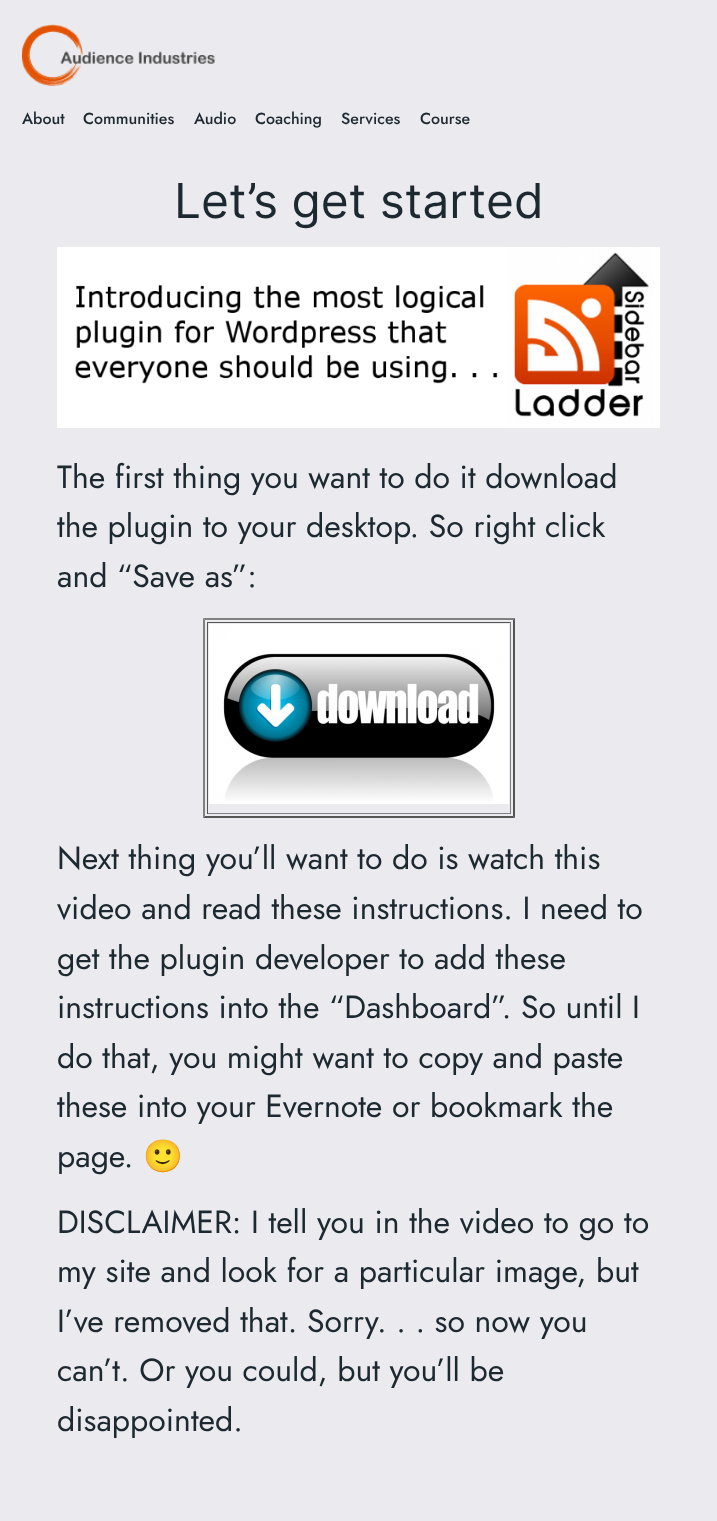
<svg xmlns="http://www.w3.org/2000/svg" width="717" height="1521">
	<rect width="100%" height="100%" fill="#EBEBEF" />
	<image x="22" y="24" width="193" height="62" href="assets/img1.png" />
	<g font-family="Jost" font-size="16" font-weight="500" fill="#1C2930">
		<text x="22" y="124">About</text>
		<text x="83" y="124">Communities</text>
		<text x="194" y="124">Audio</text>
		<text x="255" y="124">Coaching</text>
		<text x="341" y="124">Services</text>
		<text x="420" y="124">Course</text>
	</g>
	<text x="174" y="218" font-family="Inter" font-size="48" fill="#1C2930">Let’s get started</text>
	<image x="57" y="247" width="603" height="181" href="assets/img2.png" />
	<g font-family="Jost" font-size="32" fill="#1C2930">
		<text x="57" y="488">The first thing you want to do it download</text>
		<text x="57" y="537">the plugin to your desktop. So right click</text>
		<text x="57" y="587">and “Save as”:</text>
	</g>
	<path d="M203 618H515L513 620H205Z" fill="#808080" />
	<path d="M515 618V818L513 816V620Z" fill="#555555" />
	<path d="M515 818H203L205 816H513Z" fill="#555555" />
	<path d="M203 818V618L205 620V816Z" fill="#808080" />
	<rect x="207" y="622" width="304" height="1" fill="#555555" />
	<rect x="510" y="622" width="1" height="192" fill="#808080" />
	<rect x="207" y="813" width="304" height="1" fill="#808080" />
	<rect x="207" y="622" width="1" height="192" fill="#555555" />
	<image x="209" y="624" width="300" height="180" href="assets/img3.png" />
	<g font-family="Jost" font-size="32" fill="#1C2930">
		<text x="57" y="869">Next thing you’ll want to do is watch this</text>
		<text x="57" y="919">video and read these instructions. I need to</text>
		<text x="57" y="969">get the plugin developer to add these</text>
		<text x="57" y="1018">instructions into the “Dashboard”. So until I</text>
		<text x="57" y="1068">do that, you might want to copy and paste</text>
		<text x="57" y="1117">these into your Evernote or bookmark the</text>
		<text x="57" y="1167">page.</text>
	</g>
	<text x="143" y="1167" font-family="Noto Color Emoji" font-size="32" fill="#1C2930">🙂</text>
	<g font-family="Jost" font-size="32" fill="#1C2930">
		<text x="57" y="1233">DISCLAIMER: I tell you in the video to go to</text>
		<text x="57" y="1282">my site and look for a particular image, but</text>
		<text x="57" y="1332">I’ve removed that. Sorry. . . so now you</text>
		<text x="57" y="1381">can’t. Or you could, but you’ll be</text>
		<text x="57" y="1431">disappointed.</text>
	</g>
</svg>
